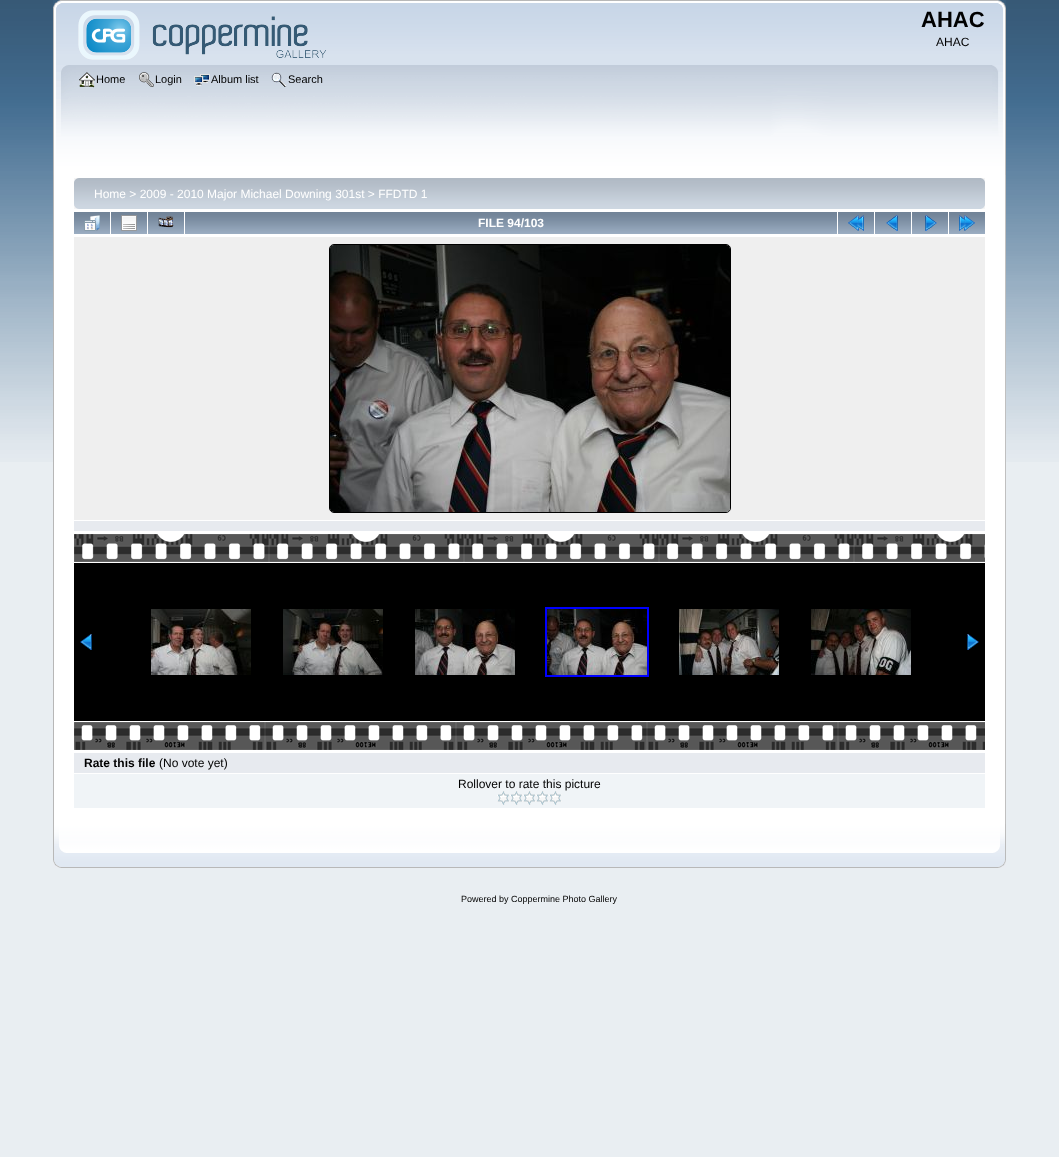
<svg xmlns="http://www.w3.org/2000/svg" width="1059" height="1157">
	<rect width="100%" height="100%" fill="#E9EEF2" />
	<image x="0" y="0" width="1059" height="462" href="assets/img1.png" />
	<image x="53" y="0" width="945" height="65" href="assets/img2.png" />
	<image x="998" y="0" width="8" height="65" href="assets/img3.png" />
	<image x="78" y="10" width="248" height="50" href="assets/img4.png" />
	<text x="921" y="27" font-family="Liberation Sans" font-size="22" font-weight="700" fill="#000000">AHAC</text>
	<text x="936" y="46" font-family="Liberation Sans" font-size="12" fill="#000000">AHAC</text>
	<image x="53" y="65" width="939" height="110" href="assets/img5.png" />
	<image x="992" y="65" width="14" height="110" href="assets/img6.png" />
	<image x="79" y="72" width="16" height="16" href="assets/img7.png" />
	<text x="96" y="83" font-family="Liberation Sans" font-size="11" fill="#000000">Home</text>
	<image x="139" y="72" width="15" height="15" href="assets/img8.png" />
	<text x="155" y="83" font-family="Liberation Sans" font-size="11" fill="#000000">Login</text>
	<image x="194" y="74" width="16" height="12" href="assets/img9.png" />
	<text x="211" y="83" font-family="Liberation Sans" font-size="11" fill="#000000">Album list</text>
	<image x="271" y="72" width="16" height="15" href="assets/img10.png" />
	<text x="288" y="83" font-family="Liberation Sans" font-size="11" fill="#000000">Search</text>
	<rect x="54" y="175" width="951" height="649" fill="#FFFFFF" />
	<rect x="53" y="175" width="1" height="649" fill="#B7B7B7" />
	<rect x="1005" y="175" width="1" height="649" fill="#C0C0C0" />
	<image x="74" y="178" width="907" height="31" href="assets/img11.png" />
	<image x="981" y="178" width="4" height="31" href="assets/img12.png" />
	<text x="94" y="198" font-family="Liberation Sans" font-size="12" fill="#FFFFFF">Home &gt; 2009 - 2010 Major Michael Downing 301st &gt; FFDTD 1</text>
	<image x="74" y="212" width="36" height="22" href="assets/img13.png" />
	<image x="84" y="215" width="16" height="16" href="assets/img14.png" />
	<image x="111" y="212" width="36" height="22" href="assets/img13.png" />
	<image x="121" y="215" width="16" height="16" href="assets/img15.png" />
	<image x="148" y="212" width="36" height="22" href="assets/img13.png" />
	<image x="158" y="216" width="16" height="12" href="assets/img16.png" />
	<image x="185" y="212" width="652" height="22" href="assets/img17.png" />
	<text x="478" y="227" font-family="Liberation Sans" font-size="12" font-weight="700" fill="#FFFFFF">FILE 94/103</text>
	<image x="838" y="212" width="36" height="22" href="assets/img13.png" />
	<image x="848" y="215" width="16" height="16" href="assets/img18.png" />
	<image x="875" y="212" width="36" height="22" href="assets/img13.png" />
	<image x="886" y="215" width="12" height="16" href="assets/img19.png" />
	<image x="912" y="212" width="36" height="22" href="assets/img13.png" />
	<image x="925" y="215" width="12" height="16" href="assets/img20.png" />
	<image x="949" y="212" width="36" height="22" href="assets/img13.png" />
	<image x="959" y="215" width="16" height="16" href="assets/img21.png" />
	<rect x="74" y="237" width="911" height="283" fill="#EFEFEF" />
	<rect x="329.5" y="244.5" width="401" height="268" rx="4.5" fill="none" stroke="#000000" />
	<image x="330" y="245" width="400" height="267" href="assets/img22.png" />
	<rect x="74" y="521" width="911" height="10" fill="#E7EAEF" />
	<image x="74" y="534" width="911" height="28" href="assets/img23.png" />
	<rect x="74" y="563" width="911" height="158" fill="#000000" />
	<image x="80" y="634" width="12" height="16" href="assets/img24.png" />
	<image x="151" y="609" width="100" height="66" href="assets/img25.png" />
	<image x="283" y="609" width="100" height="66" href="assets/img26.png" />
	<image x="415" y="609" width="100" height="66" href="assets/img27.png" />
	<rect x="546" y="608" width="102" height="68" fill="none" stroke="#0000FF" stroke-width="2" />
	<image x="547" y="609" width="100" height="66" href="assets/img28.png" />
	<image x="679" y="609" width="100" height="66" href="assets/img29.png" />
	<image x="811" y="609" width="100" height="66" href="assets/img30.png" />
	<image x="967" y="634" width="12" height="16" href="assets/img31.png" />
	<image x="74" y="722" width="911" height="28" href="assets/img32.png" />
	<rect x="74" y="753" width="911" height="20" fill="#E7EAEF" />
	<text x="84" y="767" font-family="Liberation Sans" font-size="12" font-weight="700" fill="#000000">Rate this file</text>
	<text x="159" y="767" font-family="Liberation Sans" font-size="12" fill="#000000">(No vote yet)</text>
	<rect x="74" y="774" width="911" height="34" fill="#F0F4F7" />
	<text x="458" y="788" font-family="Liberation Sans" font-size="12" fill="#000000">Rollover to rate this picture</text>
	<image x="497" y="791" width="13" height="14" href="assets/img33.png" />
	<image x="510" y="791" width="13" height="14" href="assets/img33.png" />
	<image x="523" y="791" width="13" height="14" href="assets/img33.png" />
	<image x="536" y="791" width="13" height="14" href="assets/img33.png" />
	<image x="549" y="791" width="13" height="14" href="assets/img33.png" />
	<image x="53" y="824" width="940" height="44" href="assets/img34.png" />
	<image x="993" y="824" width="13" height="44" href="assets/img35.png" />
	<text x="461" y="902" font-family="Liberation Sans" font-size="9" fill="#000000">Powered by Coppermine Photo Gallery</text>
</svg>
